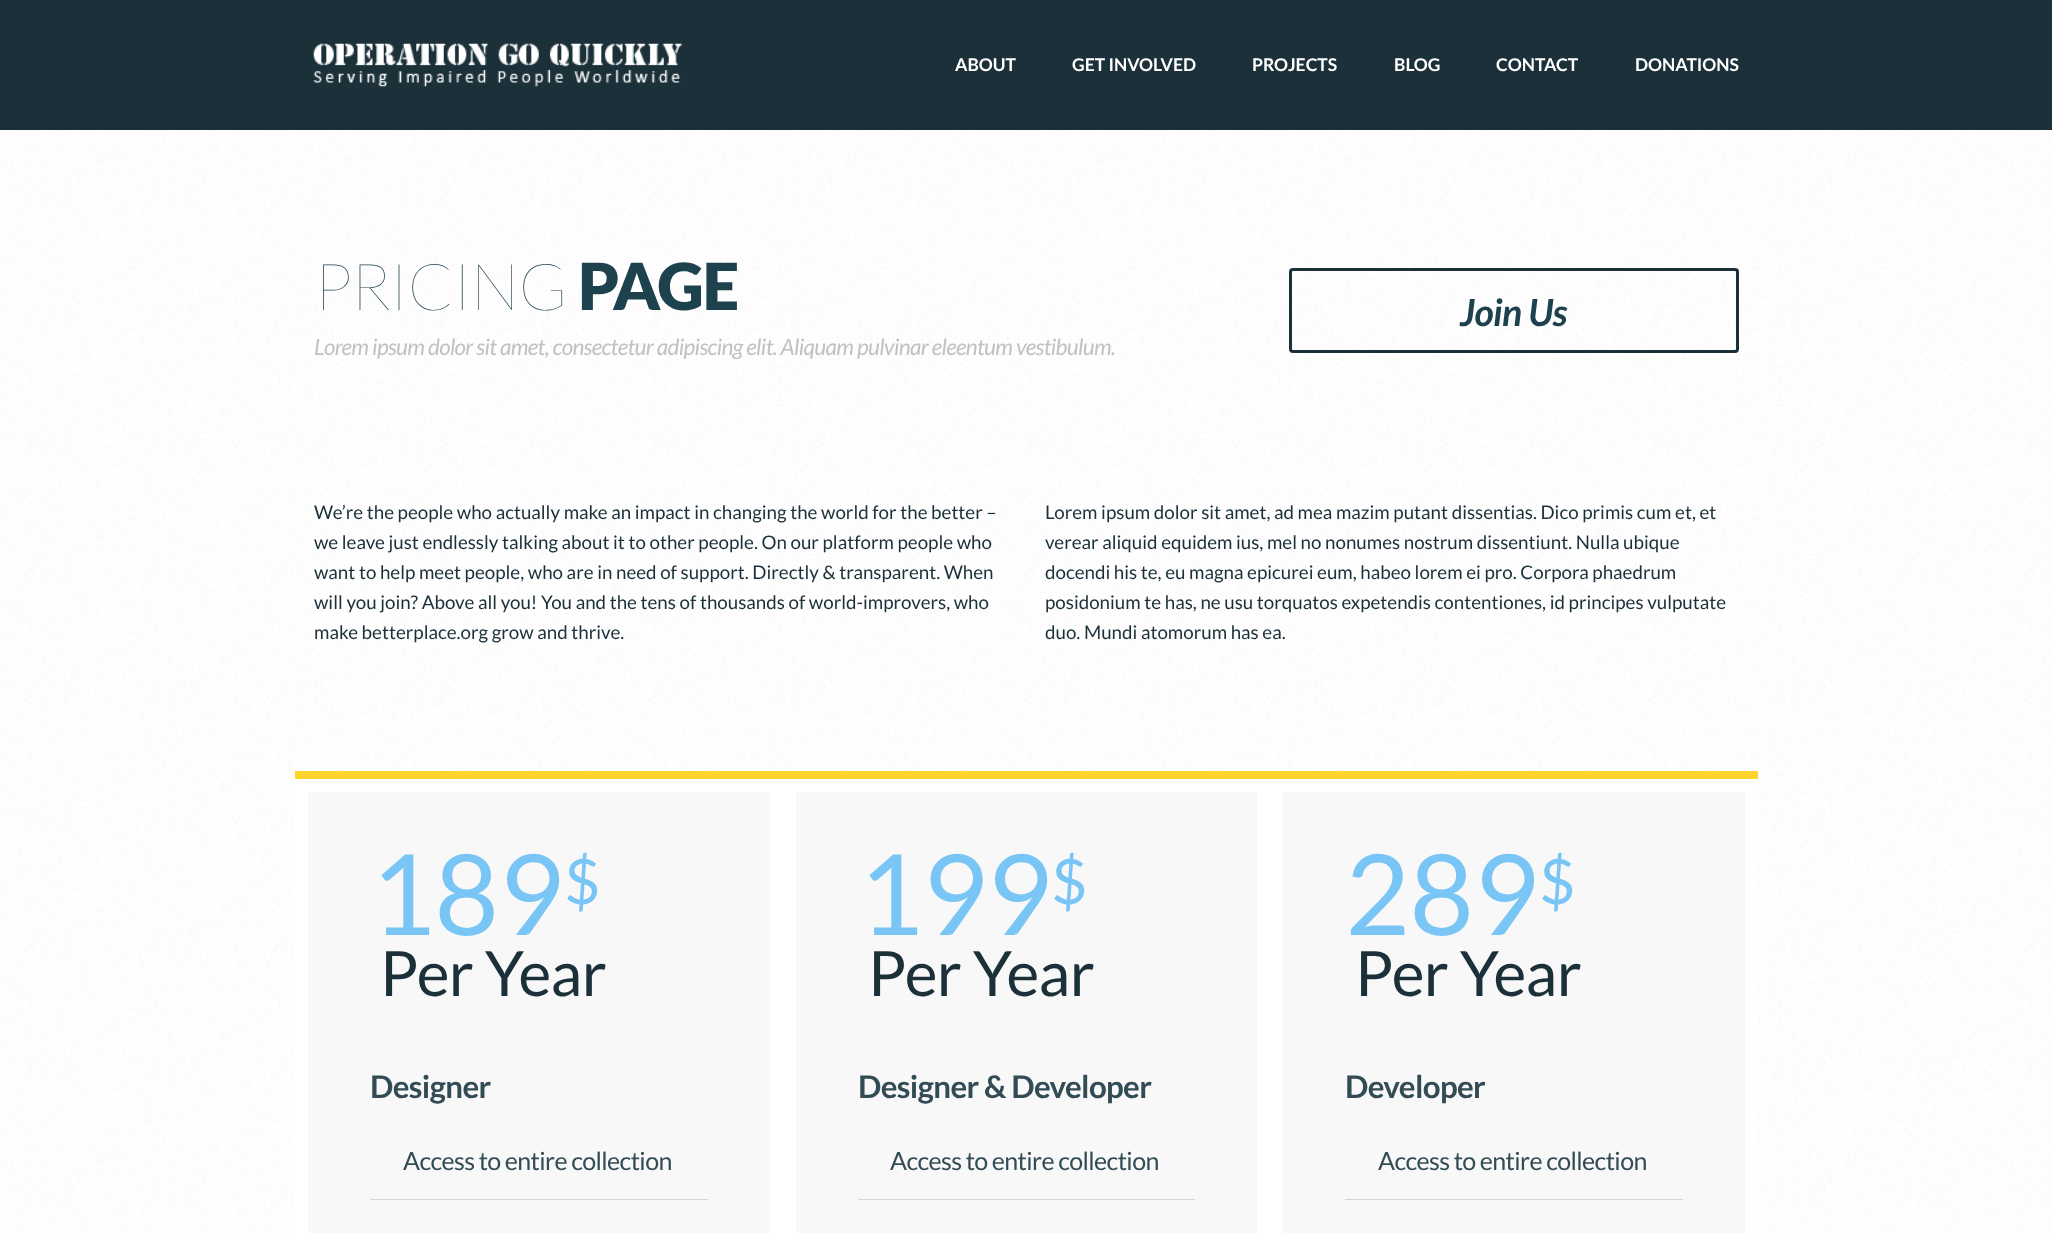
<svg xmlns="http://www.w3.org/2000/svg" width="2052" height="1233">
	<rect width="100%" height="100%" fill="#FFFFFF" />
	<image x="0" y="130" width="2052" height="1103" href="assets/img1.png" />
	<rect x="0" y="0" width="2052" height="130" fill="#1B3039" />
	<image x="313" y="43" width="370" height="44" href="assets/img2.png" />
	<g font-family="Lato" font-size="17.5" font-weight="700" fill="#FFFFFF">
		<text x="955" y="71">ABOUT</text>
		<text x="1072" y="71">GET INVOLVED</text>
		<text x="1252" y="71">PROJECTS</text>
		<text x="1394" y="71">BLOG</text>
		<text x="1496" y="71">CONTACT</text>
		<text x="1635" y="71">DONATIONS</text>
	</g>
	<text x="314" y="310" font-family="Lato" font-size="65" font-weight="100" letter-spacing="-1.25" fill="#1E414E">PRICING</text>
	<text x="578" y="310" font-family="Lato" font-size="65" font-weight="900" letter-spacing="-1.25" fill="#1E414E">PAGE</text>
	<text x="314" y="355" font-family="Lato" font-size="22.5" font-style="italic" letter-spacing="-0.62" fill="#C1C1C1">Lorem ipsum dolor sit amet, consectetur adipiscing elit. Aliquam pulvinar eleentum vestibulum.</text>
	<rect x="1290.5" y="269.5" width="447" height="82" rx="2.5" fill="none" stroke="#1B3039" stroke-width="3" />
	<text x="1460" y="326" font-family="Lato" font-size="37.5" font-weight="700" font-style="italic" letter-spacing="-0.62" fill="#1E414E">Join Us</text>
	<g font-family="Lato" font-size="18.75" fill="#1B3039">
		<text x="314" y="519">We’re the people who actually make an impact in changing the world for the better –</text>
		<text x="314" y="549">we leave just endlessly talking about it to other people. On our platform people who</text>
		<text x="314" y="579">want to help meet people, who are in need of support. Directly &amp; transparent. When</text>
		<text x="314" y="609">will you join? Above all you! You and the tens of thousands of world-improvers, who</text>
		<text x="314" y="639">make betterplace.org grow and thrive.</text>
		<text x="1045" y="519">Lorem ipsum dolor sit amet, ad mea mazim putant dissentias. Dico primis cum et, et</text>
		<text x="1045" y="549">verear aliquid equidem ius, mel no nonumes nostrum dissentiunt. Nulla ubique</text>
		<text x="1045" y="579">docendi his te, eu magna epicurei eum, habeo lorem ei pro. Corpora phaedrum</text>
		<text x="1045" y="609">posidonium te has, ne usu torquatos expetendis contentiones, id principes vulputate</text>
		<text x="1045" y="639">duo. Mundi atomorum has ea.</text>
	</g>
	<rect x="295" y="771" width="1463" height="8" fill="#FFD52D" />
	<rect x="301.5" y="785.5" width="475" height="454" fill="#F8F8F8" stroke="#FFFFFF" stroke-width="13" />
	<text x="370" y="935" font-family="Lato" font-size="112" letter-spacing="-0.62" fill="#79C5F5">189</text>
	<text x="564" y="904" font-family="Lato" font-size="62.5" letter-spacing="-0.62" fill="#79C5F5">$</text>
	<text x="380" y="996" font-family="Lato" font-size="62.5" letter-spacing="-0.62" fill="#1B3039">Per Year</text>
	<text x="370" y="1098" font-family="Lato" font-size="31.25" font-weight="700" letter-spacing="-0.62" fill="#324B54">Designer</text>
	<text x="403" y="1170" font-family="Lato" font-size="25" letter-spacing="-0.62" fill="#324B54">Access to entire collection</text>
	<rect x="370" y="1199" width="338" height="1" fill="#D5D5D5" />
	<rect x="789.5" y="785.5" width="474" height="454" fill="#F8F8F8" stroke="#FFFFFF" stroke-width="13" />
	<text x="858" y="935" font-family="Lato" font-size="112" letter-spacing="-0.62" fill="#79C5F5">199</text>
	<text x="1051" y="904" font-family="Lato" font-size="62.5" letter-spacing="-0.62" fill="#79C5F5">$</text>
	<text x="868" y="996" font-family="Lato" font-size="62.5" letter-spacing="-0.62" fill="#1B3039">Per Year</text>
	<text x="858" y="1098" font-family="Lato" font-size="31.25" font-weight="700" letter-spacing="-0.62" fill="#324B54">Designer &amp; Developer</text>
	<text x="890" y="1170" font-family="Lato" font-size="25" letter-spacing="-0.62" fill="#324B54">Access to entire collection</text>
	<rect x="858" y="1199" width="337" height="1" fill="#D5D5D5" />
	<rect x="1276.5" y="785.5" width="475" height="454" fill="#F8F8F8" stroke="#FFFFFF" stroke-width="13" />
	<text x="1345" y="935" font-family="Lato" font-size="112" letter-spacing="-0.62" fill="#79C5F5">289</text>
	<text x="1539" y="904" font-family="Lato" font-size="62.5" letter-spacing="-0.62" fill="#79C5F5">$</text>
	<text x="1355" y="996" font-family="Lato" font-size="62.5" letter-spacing="-0.62" fill="#1B3039">Per Year</text>
	<text x="1345" y="1098" font-family="Lato" font-size="31.25" font-weight="700" letter-spacing="-0.62" fill="#324B54">Developer</text>
	<text x="1378" y="1170" font-family="Lato" font-size="25" letter-spacing="-0.62" fill="#324B54">Access to entire collection</text>
	<rect x="1345" y="1199" width="338" height="1" fill="#D5D5D5" />
</svg>
